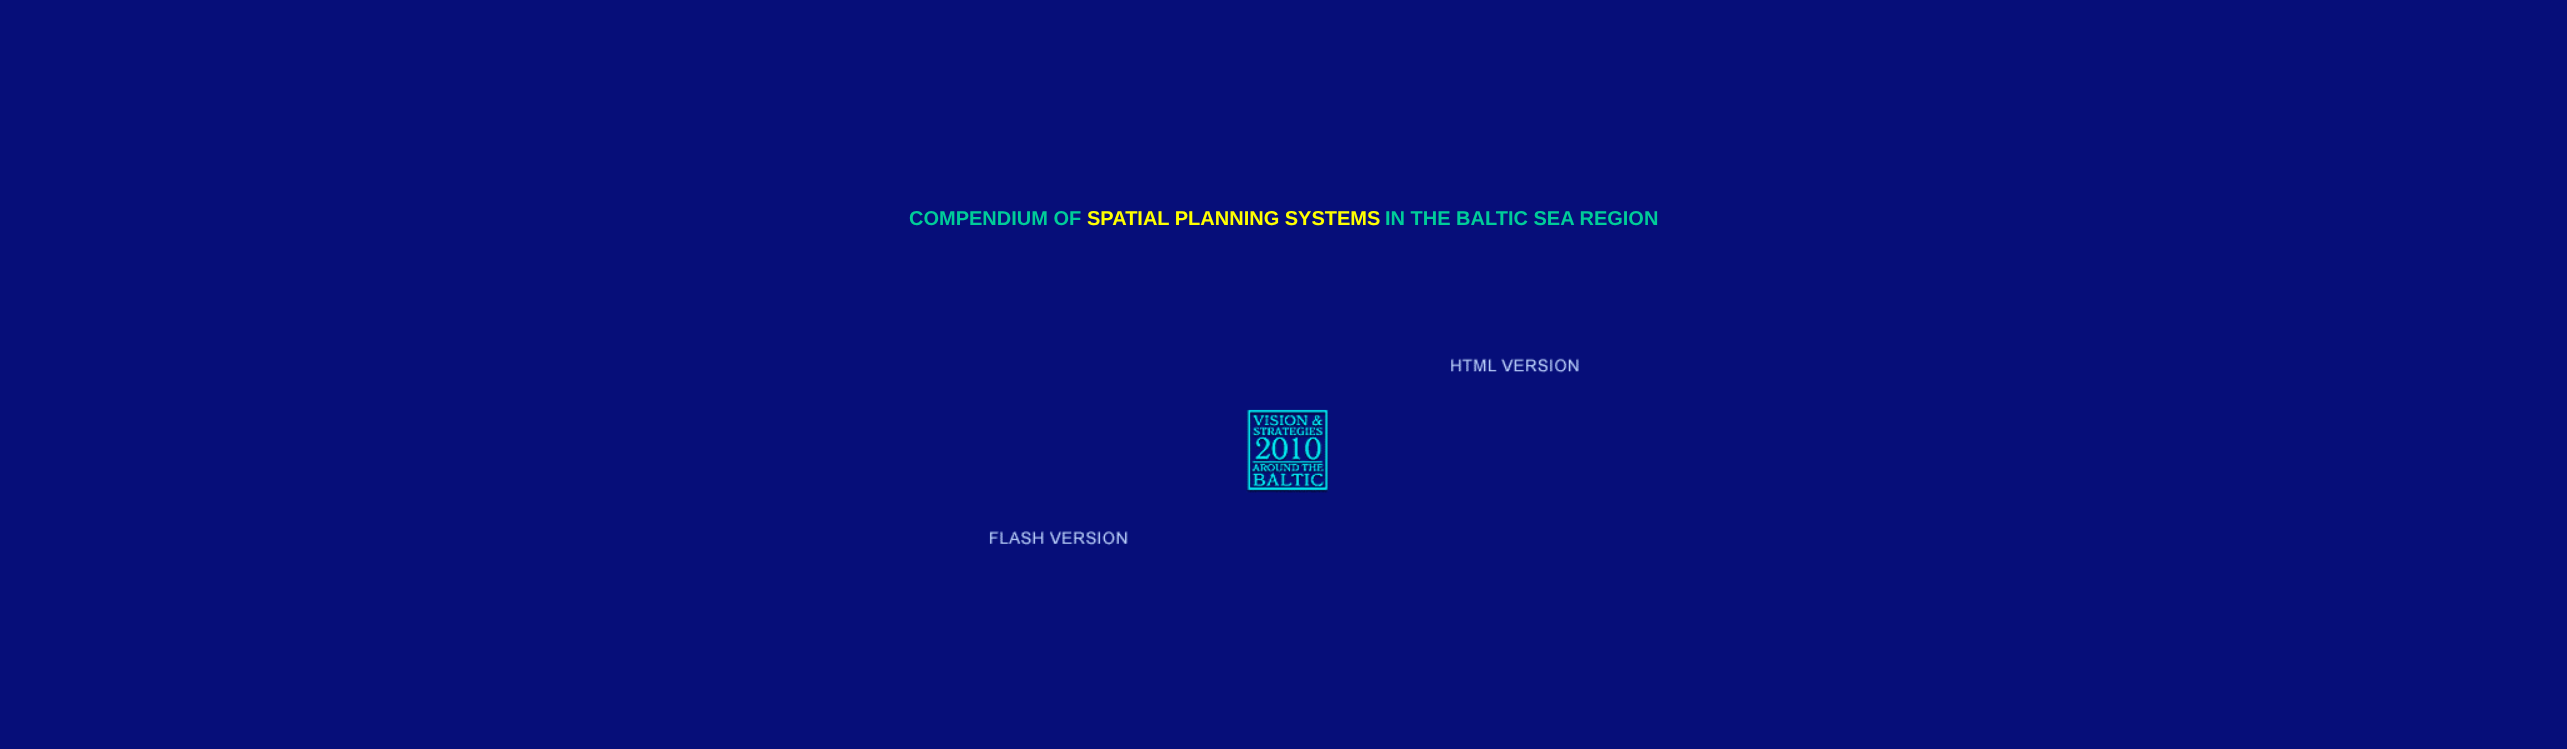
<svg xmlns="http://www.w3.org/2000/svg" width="2567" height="749">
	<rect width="100%" height="100%" fill="#060E79" />
	<text x="909" y="225" font-family="Liberation Sans" font-size="20" font-weight="700" fill="#00CC99">COMPENDIUM OF</text>
	<text x="1087" y="225" font-family="Liberation Sans" font-size="20" font-weight="700" fill="#FFFF00">SPATIAL PLANNING SYSTEMS</text>
	<text x="1385" y="225" font-family="Liberation Sans" font-size="20" font-weight="700" fill="#00CC99">IN THE BALTIC SEA REGION</text>
	<image x="1451" y="358" width="128" height="15" href="assets/img1.png" />
	<image x="1246" y="409" width="83" height="84" href="assets/img2.png" />
	<image x="989" y="531" width="139" height="15" href="assets/img3.png" />
</svg>
